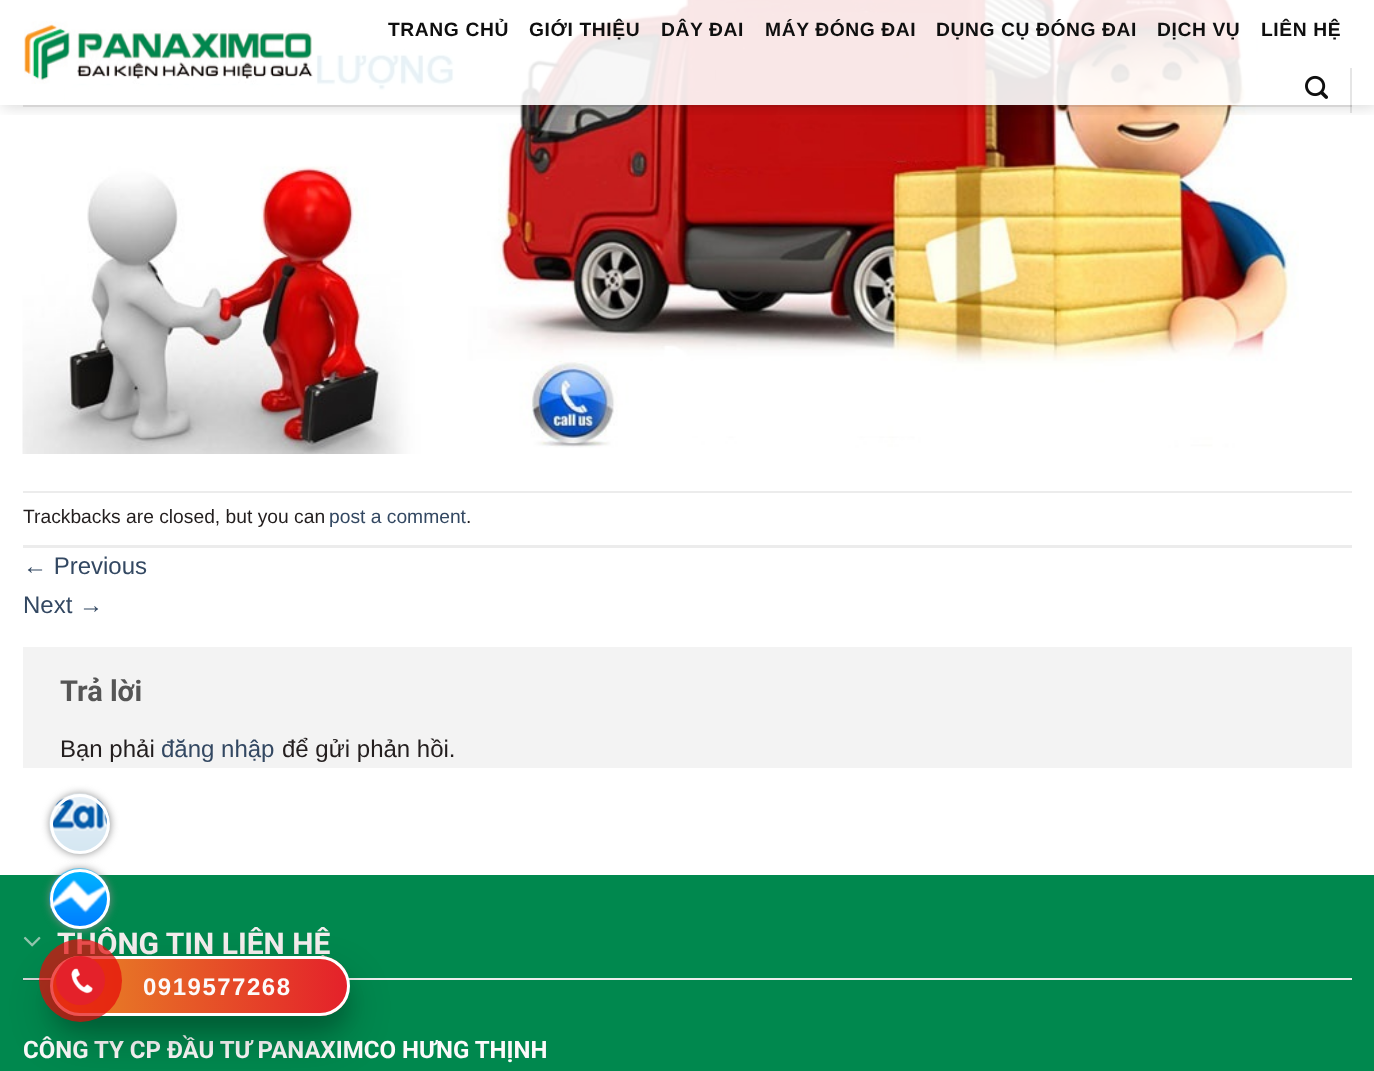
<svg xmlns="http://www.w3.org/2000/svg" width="1374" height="1071">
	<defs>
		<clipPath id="clip1"><rect x="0" y="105" width="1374" height="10" /></clipPath>
		<clipPath id="clip2"><rect x="50" y="956" width="300" height="60" rx="30" /></clipPath>
		<linearGradient id="g1" gradientUnits="userSpaceOnUse" x1="53" y1="986" x2="347" y2="986"><stop offset="0" stop-color="#E88A25" /><stop offset="1" stop-color="#E4212A" /></linearGradient>
	</defs>
	<rect width="100%" height="100%" fill="#FFFFFF" />
	<image x="22" y="0" width="1277" height="454" href="assets/img3.png" />
	<g clip-path="url(#clip1)">
		<rect x="2" y="2" width="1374" height="105" fill="#000000" fill-opacity="0.15" filter="blur(7.5px)" />
	</g>
	<rect x="65" y="0" width="1191" height="105" fill="#FFFFFF" fill-opacity="0.9" />
	<image x="24" y="21" width="289" height="63" href="assets/img1.png" />
	<g font-family="Liberation Sans" font-size="19.25" font-weight="700" letter-spacing="0.6" fill="#0F0F0F">
		<text x="388" y="36">TRANG CHỦ</text>
		<text x="529" y="36">GIỚI THIỆU</text>
		<text x="661" y="36">DÂY ĐAI</text>
		<text x="765" y="36">MÁY ĐÓNG ĐAI</text>
		<text x="936" y="36">DỤNG CỤ ĐÓNG ĐAI</text>
		<text x="1157" y="36">DỊCH VỤ</text>
		<text x="1261" y="36">LIÊN HỆ</text>
	</g>
	<image x="1305" y="75" width="23" height="24" href="assets/img2.png" />
	<rect x="1350" y="68" width="2" height="45" fill="#000000" fill-opacity="0.1" />
	<rect x="23" y="105" width="1329" height="2" fill="#231E1E" fill-opacity="0.1" />
	<rect x="23" y="491" width="1329" height="2" fill="#ECECEC" />
	<rect x="23" y="545" width="1329" height="3" fill="#ECECEC" />
	<text x="23" y="523" font-family="Liberation Sans" font-size="19.25" fill="#231E1E">Trackbacks are closed, but you can</text>
	<text x="329" y="523" font-family="Liberation Sans" font-size="19.25" fill="#334862">post a comment</text>
	<text x="466" y="523" font-family="Liberation Sans" font-size="19.25" fill="#231E1E">.</text>
	<g font-family="Liberation Sans" font-size="24" fill="#334862">
		<text x="23" y="574">← Previous</text>
		<text x="23" y="613">Next →</text>
	</g>
	<rect x="23" y="647" width="1329" height="121" fill="#F3F3F3" />
	<text x="60" y="701" font-family="Roboto" font-size="29" font-weight="700" fill="#555555">Trả lời</text>
	<text x="60" y="757" font-family="Liberation Sans" font-size="24" fill="#231E1E">Bạn phải</text>
	<text x="161" y="757" font-family="Liberation Sans" font-size="24" fill="#334862">đăng nhập</text>
	<text x="282" y="757" font-family="Liberation Sans" font-size="24" fill="#231E1E">để gửi phản hồi.</text>
	<rect x="0" y="875" width="1374" height="196" fill="#00884E" />
	<rect x="23" y="980" width="28" height="1" fill="#007A46" />
	<rect x="348" y="978" width="1004" height="2" fill="#ECECEC" />
	<rect x="23" y="978" width="29" height="2" fill="#D4D4D4" />
	<image x="23" y="936" width="18" height="11" href="assets/img4.png" />
	<text x="57" y="954" font-family="Roboto" font-size="30" font-weight="700" fill="#F4EDED">THÔNG TIN LIÊN HỆ</text>
	<text x="23" y="1058" font-family="Roboto" font-size="24" font-weight="700" fill="#FCFAFA">CÔNG TY CP ĐẦU TƯ PANAXIMCO HƯNG THỊNH</text>
	<rect x="50" y="794" width="60" height="60" rx="30" fill="#888888" filter="blur(4px)" />
	<image x="49" y="793" width="61" height="61" href="assets/img5.png" />
	<circle cx="80" cy="824" r="28.5" fill="none" stroke="#FFFFFF" stroke-width="3" />
	<rect x="50" y="971" width="300" height="60" rx="30" fill="#000000" fill-opacity="0.1" filter="blur(7.5px)" />
	<rect x="50" y="977" width="300" height="60" rx="30" fill="#000000" fill-opacity="0.25" filter="blur(21px)" />
	<g clip-path="url(#clip2)">
		<rect x="53" y="956" width="294" height="60" fill="url(#g1)" />
	</g>
	<rect x="51.5" y="957.5" width="297" height="57" rx="28.5" fill="none" stroke="#FFFFFF" stroke-width="3" />
	<circle cx="80.5" cy="980.5" r="41.5" fill="#E60808" fill-opacity="0.7" />
	<rect x="50" y="869" width="60" height="60" rx="30" fill="#888888" filter="blur(4px)" />
	<image x="49" y="868" width="61" height="61" href="assets/img6.png" />
	<circle cx="80" cy="899" r="28.5" fill="none" stroke="#FFFFFF" stroke-width="3" />
	<circle cx="80.5" cy="980.5" r="24.5" fill="#E4212A" />
	<image x="71" y="968" width="22" height="26" href="assets/img7.png" />
	<text x="143" y="995" font-family="Liberation Sans" font-size="24" font-weight="700" letter-spacing="1.5" fill="#FCFAFA">0919577268</text>
</svg>
